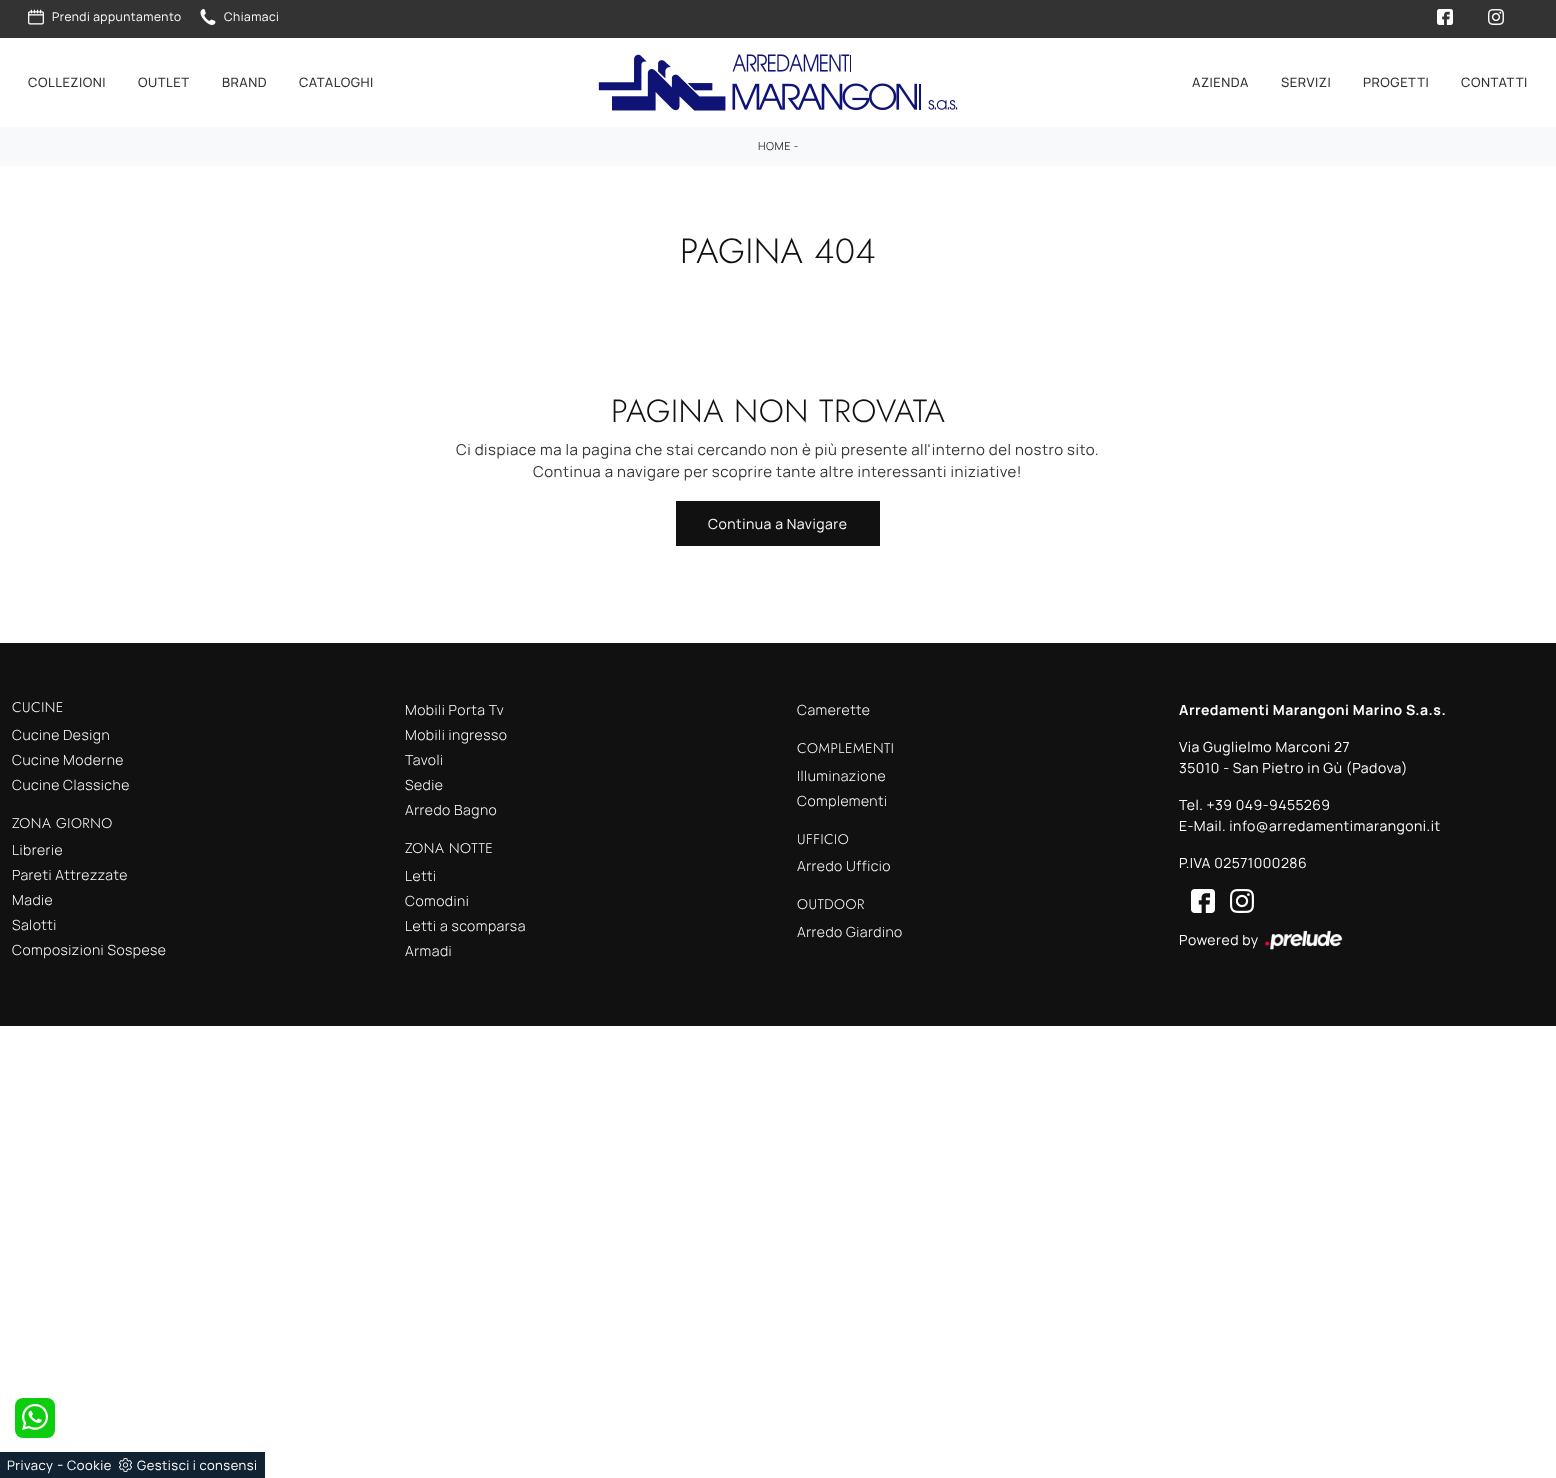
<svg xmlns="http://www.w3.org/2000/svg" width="1556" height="1478">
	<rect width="100%" height="100%" fill="#FFFFFF" />
	<rect x="0" y="0" width="1556" height="38" fill="#333333" />
	<image x="28" y="9" width="16" height="16" href="assets/img1.png" />
	<text x="52" y="21" font-family="Manrope" font-size="12" letter-spacing="0.5" fill="#FFFFFF">Prendi appuntamento</text>
	<image x="200" y="9" width="16" height="16" href="assets/img2.png" />
	<text x="224" y="21" font-family="Manrope" font-size="12" letter-spacing="0.5" fill="#FFFFFF">Chiamaci</text>
	<image x="1437" y="9" width="16" height="16" href="assets/img3.png" />
	<image x="1488" y="9" width="16" height="16" href="assets/img4.png" />
	<g font-family="Manrope" font-size="13" font-weight="500" letter-spacing="0.5" fill="#333333">
		<text x="28" y="87">COLLEZIONI</text>
		<text x="138" y="87">OUTLET</text>
		<text x="222" y="87">BRAND</text>
		<text x="299" y="87">CATALOGHI</text>
	</g>
	<image x="598" y="54" width="360" height="57" href="assets/img5.png" />
	<g font-family="Manrope" font-size="13" font-weight="500" letter-spacing="0.5" fill="#333333">
		<text x="1192" y="87">AZIENDA</text>
		<text x="1281" y="87">SERVIZI</text>
		<text x="1363" y="87">PROGETTI</text>
		<text x="1461" y="87">CONTATTI</text>
	</g>
	<rect x="0" y="127" width="1556" height="39" fill="#F8F9FA" />
	<text x="758" y="150" font-family="Manrope" font-size="11" letter-spacing="0.5" fill="#333333">HOME -</text>
	<text x="680" y="263" font-family="Jost" font-size="35" font-weight="300" letter-spacing="0.5" fill="#111111">PAGINA 404</text>
	<text x="611" y="422" font-family="Jost" font-size="32" font-weight="300" letter-spacing="0.5" fill="#111111">PAGINA NON TROVATA</text>
	<g font-family="Manrope" font-size="15" letter-spacing="0.5" fill="#333333">
		<text x="456" y="455">Ci dispiace ma la pagina che stai cercando non è più presente all'interno del nostro sito.</text>
		<text x="533" y="477">Continua a navigare per scoprire tante altre interessanti iniziative!</text>
	</g>
	<rect x="676" y="501" width="204" height="45" fill="#111111" />
	<text x="708" y="529" font-family="Manrope" font-size="14" letter-spacing="0.5" fill="#FFFFFF">Continua a Navigare</text>
	<rect x="0" y="643" width="1556" height="383" fill="#111111" />
	<text x="12" y="712" font-family="Jost" font-size="14" font-weight="300" letter-spacing="0.5" fill="#FFFFFF">CUCINE</text>
	<g font-family="Manrope" font-size="14" font-weight="300" letter-spacing="0.5" fill="#FFFFFF">
		<text x="12" y="740">Cucine Design</text>
		<text x="12" y="765">Cucine Moderne</text>
		<text x="12" y="790">Cucine Classiche</text>
		<text x="405" y="715">Mobili Porta Tv</text>
		<text x="405" y="740">Mobili ingresso</text>
		<text x="405" y="765">Tavoli</text>
		<text x="405" y="790">Sedie</text>
		<text x="405" y="815">Arredo Bagno</text>
	</g>
	<text x="12" y="828" font-family="Jost" font-size="14" font-weight="300" letter-spacing="0.5" fill="#FFFFFF">ZONA GIORNO</text>
	<g font-family="Manrope" font-size="14" font-weight="300" letter-spacing="0.5" fill="#FFFFFF">
		<text x="12" y="855">Librerie</text>
		<text x="12" y="880">Pareti Attrezzate</text>
		<text x="12" y="905">Madie</text>
		<text x="12" y="930">Salotti</text>
		<text x="12" y="955">Composizioni Sospese</text>
		<text x="797" y="715">Camerette</text>
	</g>
	<text x="405" y="853" font-family="Jost" font-size="14" font-weight="300" letter-spacing="0.5" fill="#FFFFFF">ZONA NOTTE</text>
	<g font-family="Manrope" font-size="14" font-weight="300" letter-spacing="0.5" fill="#FFFFFF">
		<text x="405" y="881">Letti</text>
		<text x="405" y="906">Comodini</text>
		<text x="405" y="931">Letti a scomparsa</text>
		<text x="405" y="956">Armadi</text>
	</g>
	<text x="797" y="753" font-family="Jost" font-size="14" font-weight="300" letter-spacing="0.5" fill="#FFFFFF">COMPLEMENTI</text>
	<g font-family="Manrope" font-size="14" font-weight="300" letter-spacing="0.5" fill="#FFFFFF">
		<text x="797" y="781">Illuminazione</text>
		<text x="797" y="806">Complementi</text>
	</g>
	<text x="797" y="844" font-family="Jost" font-size="14" font-weight="300" letter-spacing="0.5" fill="#FFFFFF">UFFICIO</text>
	<text x="797" y="871" font-family="Manrope" font-size="14" font-weight="300" letter-spacing="0.5" fill="#FFFFFF">Arredo Ufficio</text>
	<text x="797" y="909" font-family="Jost" font-size="14" font-weight="300" letter-spacing="0.5" fill="#FFFFFF">OUTDOOR</text>
	<text x="797" y="937" font-family="Manrope" font-size="14" font-weight="300" letter-spacing="0.5" fill="#FFFFFF">Arredo Giardino</text>
	<text x="1179" y="715" font-family="Manrope" font-size="14" font-weight="700" letter-spacing="0.5" fill="#FFFFFF">Arredamenti Marangoni Marino S.a.s.</text>
	<g font-family="Manrope" font-size="14" letter-spacing="0.5" fill="#FFFFFF">
		<text x="1179" y="752">Via Guglielmo Marconi 27</text>
		<text x="1179" y="773">35010 - San Pietro in Gù (Padova)</text>
		<text x="1179" y="810">Tel. +39 049-9455269</text>
		<text x="1179" y="831">E-Mail. info@arredamentimarangoni.it</text>
		<text x="1179" y="868">P.IVA 02571000286</text>
	</g>
	<image x="1191" y="889" width="24" height="24" href="assets/img6.png" />
	<image x="1230" y="889" width="24" height="24" href="assets/img7.png" />
	<text x="1179" y="945" font-family="Manrope" font-size="14" letter-spacing="0.5" fill="#FFFFFF">Powered by</text>
	<image x="1264" y="930" width="79" height="20" href="assets/img8.png" />
	<rect x="15" y="1398" width="40" height="40" rx="8" fill="#0ECC0E" />
	<image x="22" y="1404" width="26" height="26" href="assets/img9.png" />
	<rect x="0" y="1452" width="265" height="26" fill="#112233" />
	<text x="7" y="1470" font-family="Manrope" font-size="13" letter-spacing="0.5" fill="#FFFFFF">Privacy</text>
	<text x="57" y="1470" font-family="Manrope" font-size="15" letter-spacing="0.5" fill="#FFFFFF">-</text>
	<text x="67" y="1470" font-family="Manrope" font-size="13" letter-spacing="0.5" fill="#FFFFFF">Cookie</text>
	<image x="119" y="1458" width="13" height="14" href="assets/img10.png" />
	<text x="137" y="1470" font-family="Manrope" font-size="13" letter-spacing="0.5" fill="#FFFFFF">Gestisci i consensi</text>
</svg>
